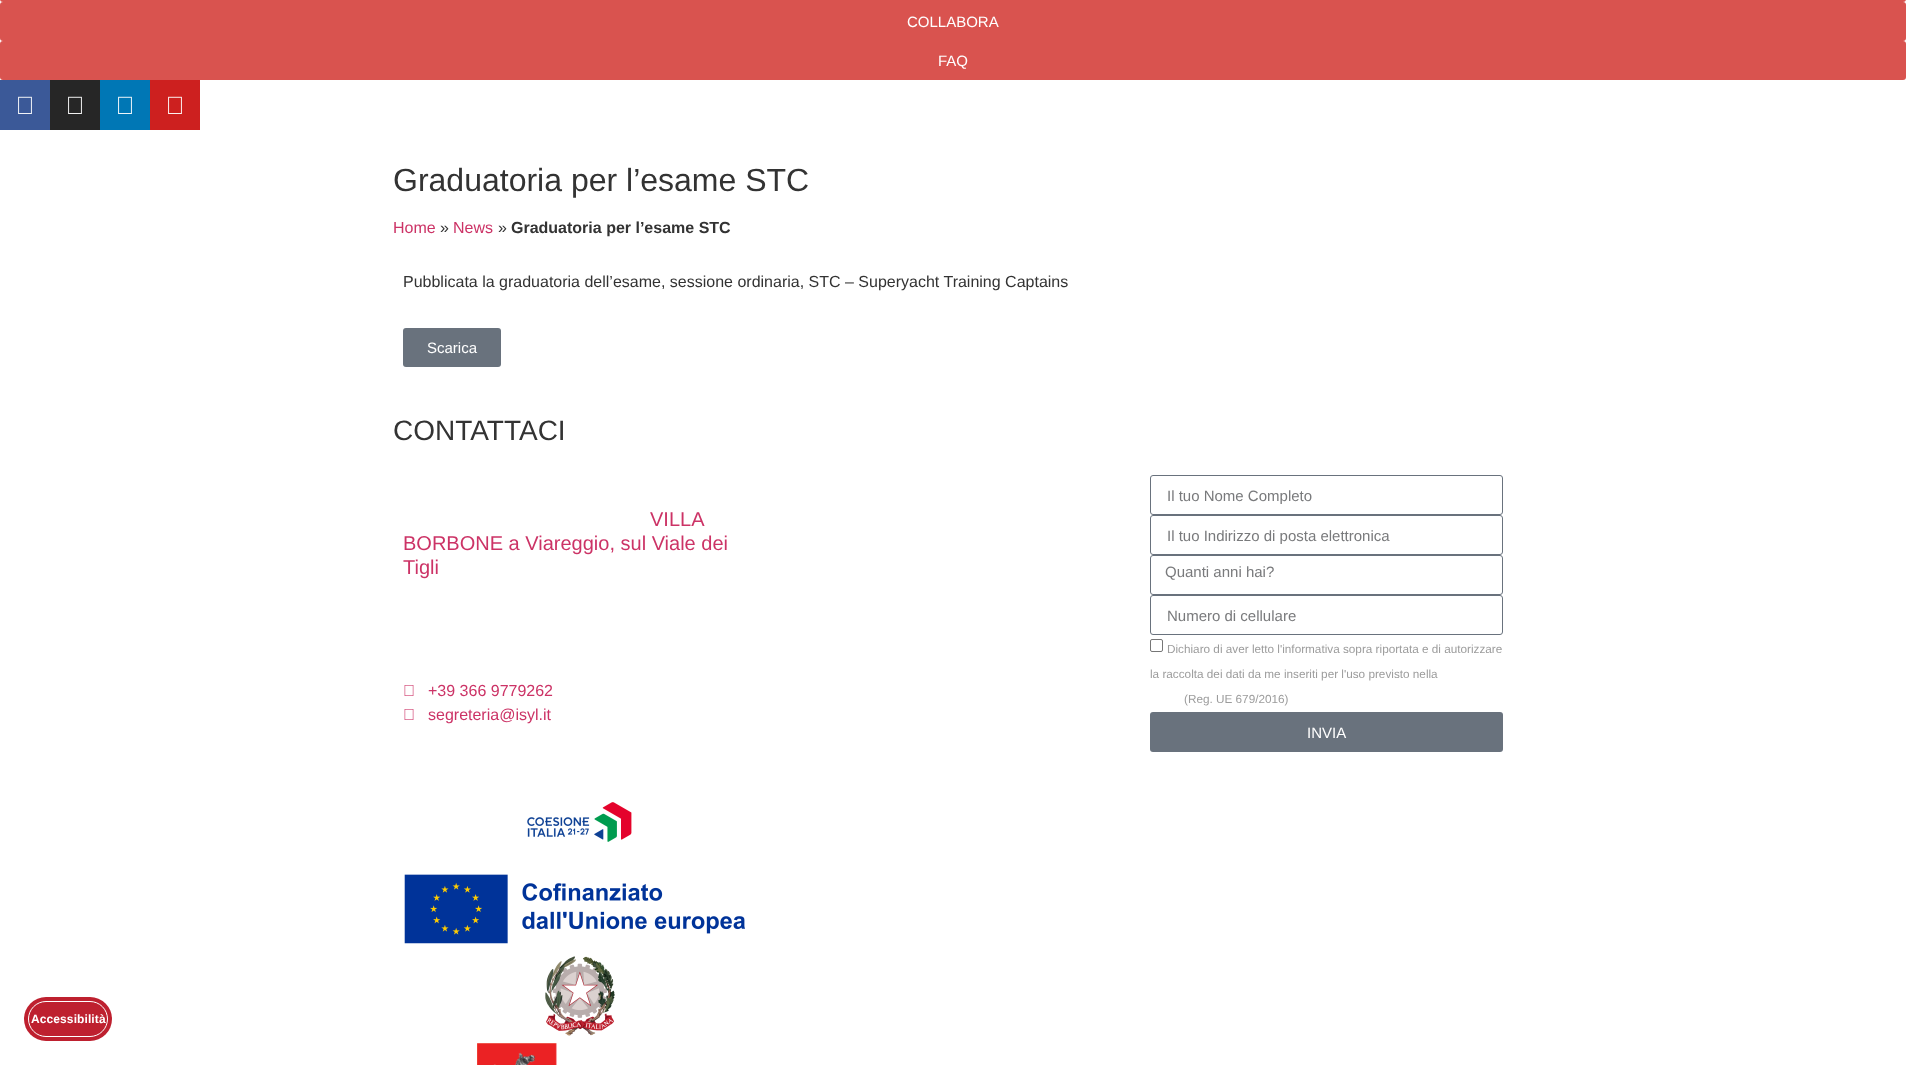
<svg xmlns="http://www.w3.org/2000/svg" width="1906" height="1065">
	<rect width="100%" height="100%" fill="#FFFFFF" />
	<rect x="0" y="-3" width="1906" height="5" rx="3" fill="#D9534F" />
	<rect x="0" y="2" width="1906" height="39" rx="3" fill="#D9534F" />
	<text x="907" y="27" font-family="Liberation Sans" font-size="15" fill="#FFFFFF">COLLABORA</text>
	<rect x="0" y="41" width="1906" height="39" rx="3" fill="#D9534F" />
	<text x="938" y="66" font-family="Liberation Sans" font-size="15" fill="#FFFFFF">FAQ</text>
	<rect x="0" y="80" width="50" height="50" fill="#3B5998" />
	<image x="18" y="96" width="14" height="18" href="assets/img1.png" />
	<rect x="50" y="80" width="50" height="50" fill="#262626" />
	<image x="68" y="96" width="14" height="18" href="assets/img2.png" />
	<rect x="100" y="80" width="50" height="50" fill="#0077B5" />
	<image x="118" y="96" width="14" height="18" href="assets/img3.png" />
	<rect x="150" y="80" width="50" height="50" fill="#CD201F" />
	<image x="168" y="96" width="14" height="18" href="assets/img4.png" />
	<text x="393" y="191" font-family="Liberation Sans" font-size="32" fill="#333333">Graduatoria per l’esame STC</text>
	<text x="393" y="233" font-family="Liberation Sans" font-size="16" fill="#CC3366">Home</text>
	<text x="440" y="233" font-family="Liberation Sans" font-size="16" fill="#333333">»</text>
	<text x="453" y="233" font-family="Liberation Sans" font-size="16" fill="#CC3366">News</text>
	<text x="498" y="233" font-family="Liberation Sans" font-size="16" fill="#333333">»</text>
	<text x="511" y="233" font-family="Liberation Sans" font-size="16" font-weight="700" fill="#333333">Graduatoria per l’esame STC</text>
	<text x="403" y="287" font-family="Liberation Sans" font-size="16" fill="#333333">Pubblicata la graduatoria dell’esame, sessione ordinaria, STC – Superyacht Training Captains</text>
	<rect x="403" y="328" width="98" height="39" rx="3" fill="#69727D" />
	<text x="427" y="353" font-family="Liberation Sans" font-size="15" fill="#FFFFFF">Scarica</text>
	<text x="393" y="440" font-family="Liberation Sans" font-size="28" fill="#333333">CONTATTACI</text>
	<g font-family="Liberation Sans" font-size="20" fill="#CC3366">
		<text x="650" y="526">VILLA</text>
		<text x="403" y="550">BORBONE a Viareggio, sul Viale dei</text>
		<text x="403" y="574">Tigli</text>
	</g>
	<image x="404" y="685" width="10" height="11" href="assets/img5.png" />
	<text x="428" y="696" font-family="Liberation Sans" font-size="16" fill="#CC3366">+39 366 9779262</text>
	<image x="404" y="709" width="10" height="11" href="assets/img5.png" />
	<text x="428" y="720" font-family="Liberation Sans" font-size="16" fill="#CC3366">segreteria@isyl.it</text>
	<rect x="1150.5" y="475.5" width="352" height="39" rx="2.5" fill="none" stroke="#69727D" />
	<text x="1167" y="501" font-family="Liberation Sans" font-size="15" fill="#797A7C">Il tuo Nome Completo</text>
	<rect x="1150.5" y="515.5" width="352" height="39" rx="2.5" fill="none" stroke="#69727D" />
	<text x="1167" y="541" font-family="Liberation Sans" font-size="15" fill="#797A7C">Il tuo Indirizzo di posta elettronica</text>
	<rect x="1150.5" y="555.5" width="352" height="39" rx="2.5" fill="none" stroke="#69727D" />
	<text x="1165" y="577" font-family="Liberation Sans" font-size="15" fill="#797A7C">Quanti anni hai?</text>
	<rect x="1150.5" y="595.5" width="352" height="39" rx="2.5" fill="none" stroke="#69727D" />
	<text x="1167" y="621" font-family="Liberation Sans" font-size="15" fill="#797A7C">Numero di cellulare</text>
	<rect x="1150.5" y="639.5" width="12" height="12" rx="1.5" fill="none" stroke="#767676" />
	<g font-family="Liberation Sans" font-size="11.75" fill="#9C9C9C">
		<text x="1167" y="653">Dichiaro di aver letto l'informativa sopra riportata e di autorizzare</text>
		<text x="1150" y="678">la raccolta dei dati da me inseriti per l'uso previsto nella</text>
		<text x="1184" y="703">(Reg. UE 679/2016)</text>
	</g>
	<rect x="1150" y="712" width="353" height="40" rx="3" fill="#69727D" />
	<text x="1307" y="738" font-family="Liberation Sans" font-size="15" fill="#FFFFFF">INVIA</text>
	<image x="527" y="802" width="105" height="40" href="assets/img6.png" />
	<image x="404" y="874" width="341" height="70" href="assets/img7.png" />
	<image x="545" y="956" width="70" height="80" href="assets/img8.png" />
	<image x="477" y="1043" width="80" height="22" href="assets/img9.png" />
	<rect x="24" y="997" width="88" height="44" rx="22" fill="#BE202F" />
	<rect x="28.5" y="1001.5" width="79" height="35" rx="17.5" fill="none" stroke="#FFFFFF" />
	<text x="31" y="1023" font-family="Liberation Sans" font-size="12" font-weight="700" letter-spacing="0.1" fill="#FFFFFF">Accessibilità</text>
</svg>
